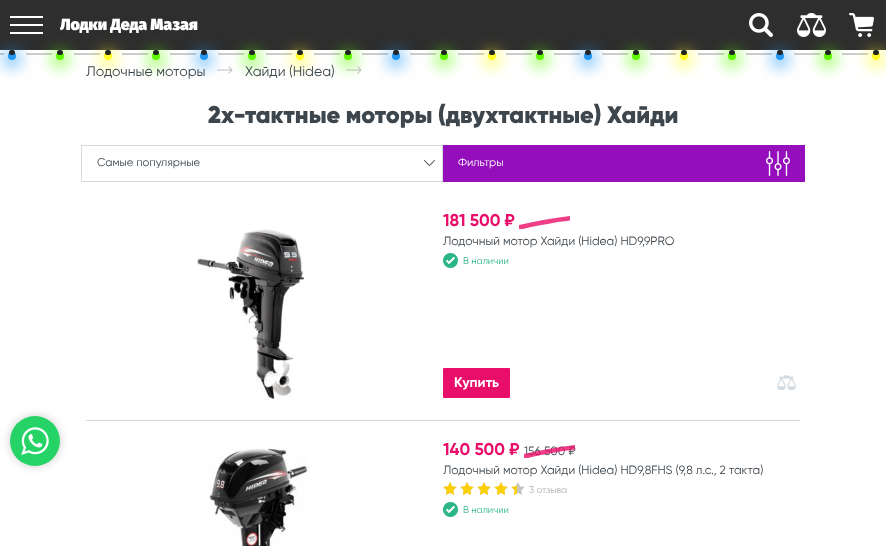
<svg xmlns="http://www.w3.org/2000/svg" width="886" height="546">
	<defs>
		<clipPath id="clip1"><rect x="519" y="215" width="51" height="14" /></clipPath>
		<clipPath id="clip2"><rect x="524" y="444" width="51" height="14" /></clipPath>
	</defs>
	<rect width="100%" height="100%" fill="#FFFFFF" />
	<rect x="0" y="0" width="886" height="50" fill="#2E2E2E" />
	<rect x="10" y="24" width="33" height="2" fill="#FFFFFF" />
	<rect x="10" y="16" width="33" height="2" fill="#FFFFFF" />
	<rect x="10" y="32" width="33" height="2" fill="#FFFFFF" />
	<text x="60" y="30" font-family="Fira Sans" font-size="16" font-weight="900" fill="#FFFFFF">Лодки Деда Мазая</text>
	<image x="749" y="13" width="24" height="24" href="assets/img1.png" />
	<image x="797" y="13" width="29" height="24" href="assets/img2.png" />
	<image x="849" y="13" width="25" height="24" href="assets/img3.png" />
	<rect x="0" y="53" width="4" height="2" fill="#CCCCCC" />
	<rect x="5" y="52" width="14" height="14" rx="7" fill="#2196F3" filter="blur(8px)" />
	<circle cx="12" cy="56" r="4" fill="#2196F3" />
	<rect x="9" y="50" width="6" height="5" rx="2.5" fill="#222222" />
	<rect x="26" y="53" width="26" height="2" fill="#CCCCCC" />
	<rect x="53" y="52" width="14" height="14" rx="7" fill="#5DF700" filter="blur(8px)" />
	<circle cx="60" cy="56" r="4" fill="#5DF700" />
	<rect x="57" y="50" width="6" height="5" rx="2.5" fill="#222222" />
	<rect x="74" y="53" width="26" height="2" fill="#CCCCCC" />
	<rect x="101" y="52" width="14" height="14" rx="7" fill="#FFFA22" filter="blur(8px)" />
	<circle cx="108" cy="56" r="4" fill="#FFFA22" />
	<rect x="105" y="50" width="6" height="5" rx="2.5" fill="#222222" />
	<rect x="122" y="53" width="26" height="2" fill="#CCCCCC" />
	<rect x="149" y="52" width="14" height="14" rx="7" fill="#5DF700" filter="blur(8px)" />
	<circle cx="156" cy="56" r="4" fill="#5DF700" />
	<rect x="153" y="50" width="6" height="5" rx="2.5" fill="#222222" />
	<rect x="170" y="53" width="26" height="2" fill="#CCCCCC" />
	<image x="217" y="66" width="16" height="8" href="assets/img5.png" />
	<rect x="197" y="52" width="14" height="14" rx="7" fill="#2196F3" filter="blur(8px)" />
	<circle cx="204" cy="56" r="4" fill="#2196F3" />
	<rect x="201" y="50" width="6" height="5" rx="2.5" fill="#222222" />
	<rect x="218" y="53" width="26" height="2" fill="#CCCCCC" />
	<rect x="245" y="52" width="14" height="14" rx="7" fill="#5DF700" filter="blur(8px)" />
	<circle cx="252" cy="56" r="4" fill="#5DF700" />
	<rect x="249" y="50" width="6" height="5" rx="2.5" fill="#222222" />
	<rect x="266" y="53" width="26" height="2" fill="#CCCCCC" />
	<rect x="293" y="52" width="14" height="14" rx="7" fill="#FFFA22" filter="blur(8px)" />
	<circle cx="300" cy="56" r="4" fill="#FFFA22" />
	<rect x="297" y="50" width="6" height="5" rx="2.5" fill="#222222" />
	<rect x="314" y="53" width="26" height="2" fill="#CCCCCC" />
	<image x="346" y="66" width="16" height="8" href="assets/img5.png" />
	<rect x="341" y="52" width="14" height="14" rx="7" fill="#5DF700" filter="blur(8px)" />
	<circle cx="348" cy="56" r="4" fill="#5DF700" />
	<rect x="345" y="50" width="6" height="5" rx="2.5" fill="#222222" />
	<rect x="362" y="53" width="26" height="2" fill="#CCCCCC" />
	<rect x="389" y="52" width="14" height="14" rx="7" fill="#2196F3" filter="blur(8px)" />
	<circle cx="396" cy="56" r="4" fill="#2196F3" />
	<rect x="393" y="50" width="6" height="5" rx="2.5" fill="#222222" />
	<rect x="410" y="53" width="26" height="2" fill="#CCCCCC" />
	<rect x="437" y="52" width="14" height="14" rx="7" fill="#5DF700" filter="blur(8px)" />
	<circle cx="444" cy="56" r="4" fill="#5DF700" />
	<rect x="441" y="50" width="6" height="5" rx="2.5" fill="#222222" />
	<rect x="458" y="53" width="26" height="2" fill="#CCCCCC" />
	<rect x="485" y="52" width="14" height="14" rx="7" fill="#FFFA22" filter="blur(8px)" />
	<circle cx="492" cy="56" r="4" fill="#FFFA22" />
	<rect x="489" y="50" width="6" height="5" rx="2.5" fill="#222222" />
	<rect x="506" y="53" width="26" height="2" fill="#CCCCCC" />
	<rect x="533" y="52" width="14" height="14" rx="7" fill="#5DF700" filter="blur(8px)" />
	<circle cx="540" cy="56" r="4" fill="#5DF700" />
	<rect x="537" y="50" width="6" height="5" rx="2.5" fill="#222222" />
	<rect x="554" y="53" width="26" height="2" fill="#CCCCCC" />
	<rect x="581" y="52" width="14" height="14" rx="7" fill="#2196F3" filter="blur(8px)" />
	<circle cx="588" cy="56" r="4" fill="#2196F3" />
	<rect x="585" y="50" width="6" height="5" rx="2.5" fill="#222222" />
	<rect x="602" y="53" width="26" height="2" fill="#CCCCCC" />
	<rect x="629" y="52" width="14" height="14" rx="7" fill="#5DF700" filter="blur(8px)" />
	<circle cx="636" cy="56" r="4" fill="#5DF700" />
	<rect x="633" y="50" width="6" height="5" rx="2.5" fill="#222222" />
	<rect x="650" y="53" width="26" height="2" fill="#CCCCCC" />
	<rect x="677" y="52" width="14" height="14" rx="7" fill="#FFFA22" filter="blur(8px)" />
	<circle cx="684" cy="56" r="4" fill="#FFFA22" />
	<rect x="681" y="50" width="6" height="5" rx="2.5" fill="#222222" />
	<rect x="698" y="53" width="26" height="2" fill="#CCCCCC" />
	<rect x="725" y="52" width="14" height="14" rx="7" fill="#5DF700" filter="blur(8px)" />
	<circle cx="732" cy="56" r="4" fill="#5DF700" />
	<rect x="729" y="50" width="6" height="5" rx="2.5" fill="#222222" />
	<rect x="746" y="53" width="26" height="2" fill="#CCCCCC" />
	<rect x="773" y="52" width="14" height="14" rx="7" fill="#2196F3" filter="blur(8px)" />
	<circle cx="780" cy="56" r="4" fill="#2196F3" />
	<rect x="777" y="50" width="6" height="5" rx="2.5" fill="#222222" />
	<rect x="794" y="53" width="26" height="2" fill="#CCCCCC" />
	<rect x="821" y="52" width="14" height="14" rx="7" fill="#5DF700" filter="blur(8px)" />
	<circle cx="828" cy="56" r="4" fill="#5DF700" />
	<rect x="825" y="50" width="6" height="5" rx="2.5" fill="#222222" />
	<rect x="842" y="53" width="26" height="2" fill="#CCCCCC" />
	<rect x="869" y="52" width="14" height="14" rx="7" fill="#FFFA22" filter="blur(8px)" />
	<circle cx="876" cy="56" r="4" fill="#FFFA22" />
	<rect x="873" y="50" width="6" height="5" rx="2.5" fill="#222222" />
	<rect x="10" y="416" width="50" height="50" rx="25" fill="#000000" fill-opacity="0.2" filter="blur(5px)" />
	<circle cx="35" cy="441" r="25" fill="#25D366" />
	<image x="21" y="427" width="28" height="28" href="assets/img4.png" />
	<g font-family="Gilroy" font-size="14" fill="#3D464D">
		<text x="86" y="76">Лодочные моторы</text>
		<text x="245" y="76">Хайди (Hidea)</text>
	</g>
	<text x="208" y="123" font-family="Gilroy" font-size="24" font-weight="900" fill="#3D464D">2х-тактные моторы (двухтактные) Хайди</text>
	<rect x="81.5" y="145.5" width="361" height="36" fill="none" stroke="#D3DBE1" />
	<text x="97" y="166" font-family="Gilroy" font-size="11.25" fill="#3D464D">Самые популярные</text>
	<image x="424" y="160" width="11" height="6" href="assets/img6.png" />
	<rect x="443" y="145" width="362" height="37" fill="#940EBC" />
	<text x="458" y="166" font-family="Gilroy" font-size="11.25" fill="#FFFFFF">Фильтры</text>
	<image x="766" y="151" width="24" height="25" href="assets/img7.png" />
	<image x="197" y="229" width="108" height="171" href="assets/img8.png" />
	<text x="443" y="226" font-family="Gilroy" font-size="17" font-weight="700" fill="#E80E69">181 500 ₽</text>
	<g clip-path="url(#clip1)">
		<path d="M519 225C536 221 553 218 570 216H574C575 216 575 220 574 220L567 221C555 222 543 225 531 227L523 229C520 229 518 230 519 226Z" fill="#E80E69" fill-opacity="0.8" fill-rule="evenodd" />
	</g>
	<text x="443" y="245" font-family="Gilroy" font-size="12" fill="#3D464D">Лодочный мотор Хайди (Hidea) HD9,9PRO</text>
	<image x="443" y="253" width="15" height="15" href="assets/img9.png" />
	<text x="463" y="264" font-family="Gilroy" font-size="9.5" fill="#2CB589">В наличии</text>
	<rect x="443" y="368" width="67" height="30" rx="1" fill="#E80E69" />
	<text x="454" y="387" font-family="Gilroy" font-size="14" font-weight="700" fill="#FFFFFF">Купить</text>
	<image x="777" y="375" width="19" height="15" href="assets/img10.png" />
	<rect x="86" y="420" width="714" height="1" fill="#D3DBE1" />
	<image x="209" y="447" width="100" height="99" href="assets/img11.png" />
	<text x="443" y="455" font-family="Gilroy" font-size="17" font-weight="700" fill="#E80E69">140 500 ₽</text>
	<text x="524" y="455" font-family="Gilroy" font-size="12" fill="#3D464D">156 500 ₽</text>
	<g clip-path="url(#clip2)">
		<path d="M524 454C541 450 558 447 575 445H579C580 445 580 449 579 449L572 450C560 451 548 454 536 456L528 458C525 458 523 459 524 455Z" fill="#E80E69" fill-opacity="0.8" fill-rule="evenodd" />
	</g>
	<text x="443" y="474" font-family="Gilroy" font-size="12" fill="#3D464D">Лодочный мотор Хайди (Hidea) HD9,8FHS (9,8 л.с., 2 такта)</text>
	<image x="443" y="482" width="82" height="13" href="assets/img12.png" />
	<image x="443" y="482" width="74" height="13" href="assets/img13.png" />
	<text x="529" y="493" font-family="Gilroy" font-size="9.5" fill="#AEAEAE">3 отзыва</text>
	<image x="443" y="502" width="15" height="15" href="assets/img9.png" />
	<text x="463" y="513" font-family="Gilroy" font-size="9.5" fill="#2CB589">В наличии</text>
</svg>
